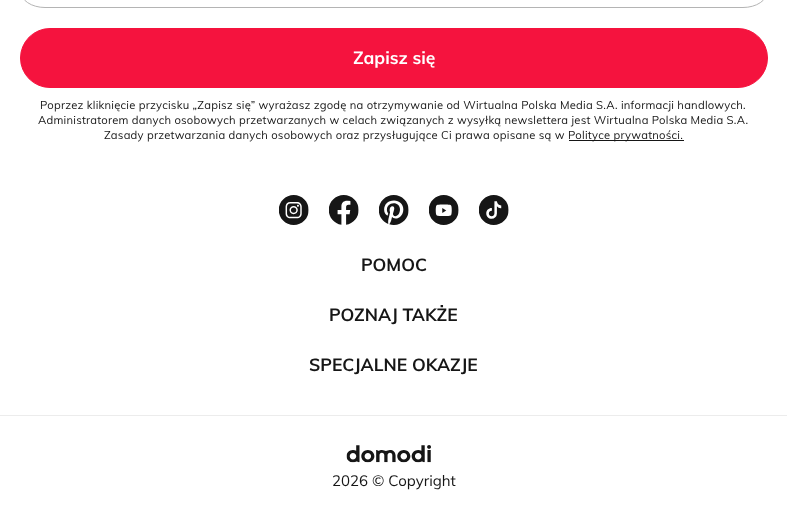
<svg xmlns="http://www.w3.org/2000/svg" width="787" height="511">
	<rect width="100%" height="100%" fill="#FFFFFF" />
	<rect x="20.5" y="-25.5" width="747" height="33" rx="24.5" fill="none" stroke="#B4B4B4" />
	<rect x="20.5" y="28.5" width="747" height="59" rx="29.5" fill="#F5133E" stroke="#F5133E" />
	<text x="353" y="64" font-family="Mulish" font-size="17.5" font-weight="700" fill="#FFFFFF">Zapisz się</text>
	<g font-family="Mulish" font-size="11.25" letter-spacing="0.22" fill="#161616">
		<text x="40" y="109">Poprzez kliknięcie przycisku „Zapisz się” wyrażasz zgodę na otrzymywanie od Wirtualna Polska Media S.A. informacji handlowych.</text>
		<text x="38" y="124">Administratorem danych osobowych przetwarzanych w celach związanych z wysyłką newslettera jest Wirtualna Polska Media S.A.</text>
		<text x="104" y="139">Zasady przetwarzania danych osobowych oraz przysługujące Ci prawa opisane są w</text>
	</g>
	<rect x="569" y="140" width="115" height="1" fill="#161616" />
	<text x="568" y="139" font-family="Mulish" font-size="11.25" letter-spacing="0.22" fill="#161616">Polityce prywatności.</text>
	<image x="279" y="195" width="30" height="30" href="assets/img1.png" />
	<image x="329" y="195" width="30" height="30" href="assets/img2.png" />
	<image x="379" y="195" width="30" height="30" href="assets/img3.png" />
	<image x="429" y="195" width="30" height="30" href="assets/img4.png" />
	<image x="479" y="195" width="30" height="30" href="assets/img5.png" />
	<g font-family="Mulish" font-size="17.5" font-weight="700" fill="#161616">
		<text x="361" y="271">POMOC</text>
		<text x="329" y="321">POZNAJ TAKŻE</text>
		<text x="309" y="371">SPECJALNE OKAZJE</text>
	</g>
	<rect x="0" y="415" width="787" height="1" fill="#ECECEC" />
	<image x="346" y="445" width="85" height="18" href="assets/img6.png" />
	<text x="332" y="486" font-family="Mulish" font-size="15" fill="#161616">2026 © Copyright</text>
</svg>
